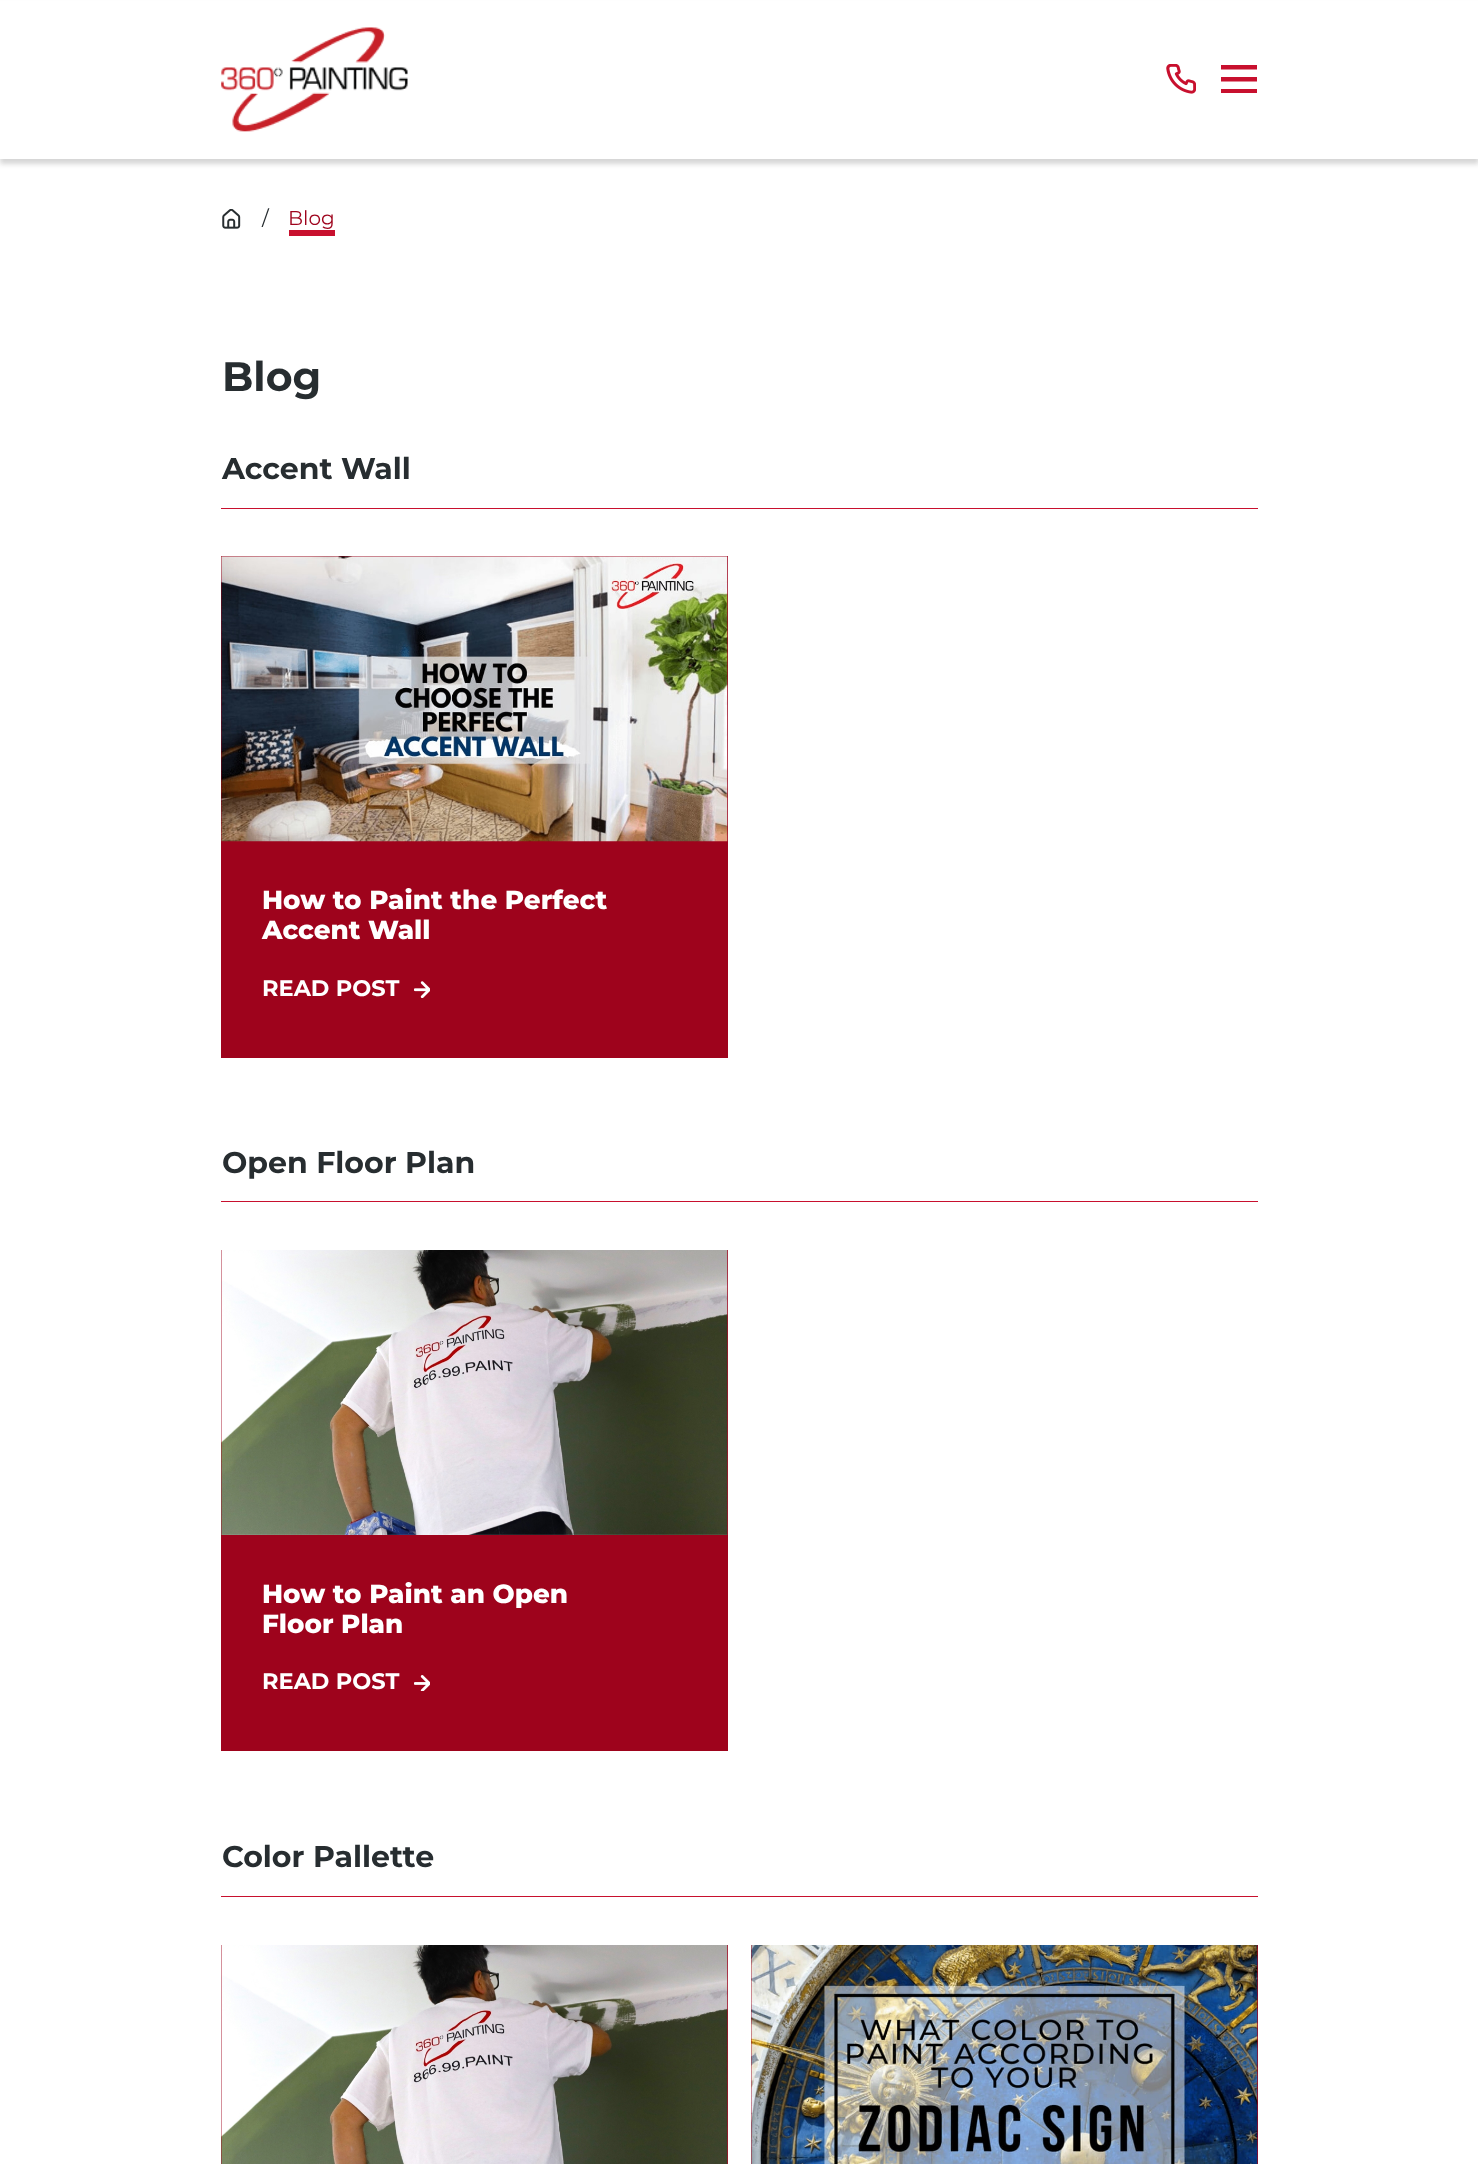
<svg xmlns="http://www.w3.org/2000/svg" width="1478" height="2164">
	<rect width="100%" height="100%" fill="#FFFFFF" />
	<rect x="0" y="5" width="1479" height="159" fill="#000000" fill-opacity="0.16" filter="blur(2.5px)" />
	<rect x="0" y="1" width="1478" height="158" fill="#FFFFFF" />
	<image x="221" y="27" width="187" height="105" href="assets/img1.png" />
	<image x="1166" y="64" width="30" height="30" href="assets/img2.png" />
	<path d="M1221 65V69.5H1257V65ZM1221 77V81.5H1257V77ZM1221 89V93H1257V89Z" fill="#C8102E" />
	<image x="222" y="209" width="19" height="20" href="assets/img3.png" />
	<text x="262" y="225" font-family="Montserrat" font-size="20" fill="#272D30">/</text>
	<text x="288" y="225" font-family="Montserrat" font-size="20" fill="#9E031C">Blog</text>
	<rect x="289" y="230" width="46" height="6" fill="#C8102E" />
	<text x="222" y="391" font-family="Montserrat" font-size="41" font-weight="700" fill="#272D30">Blog</text>
	<rect x="221" y="508" width="1037" height="1" fill="#C8102E" />
	<text x="222" y="479" font-family="Montserrat" font-size="30" font-weight="700" fill="#272D30">Accent Wall</text>
	<rect x="221" y="556" width="507" height="502" fill="#9E031C" />
	<image x="221" y="556" width="507" height="286" href="assets/img4.png" />
	<g font-family="Montserrat" font-size="26.2" font-weight="800" fill="#FFFFFF">
		<text x="262" y="909">How to Paint the Perfect</text>
		<text x="262" y="939">Accent Wall</text>
	</g>
	<text x="262" y="996" font-family="Montserrat" font-size="22.5" font-weight="700" fill="#FFFFFF">READ POST</text>
	<image x="414" y="981" width="16" height="17" href="assets/img5.png" />
	<rect x="221" y="1201" width="1037" height="1" fill="#C8102E" />
	<text x="222" y="1173" font-family="Montserrat" font-size="30" font-weight="700" fill="#272D30">Open Floor Plan</text>
	<rect x="221" y="1250" width="507" height="501" fill="#9E031C" />
	<image x="221" y="1250" width="507" height="285" href="assets/img6.png" />
	<g font-family="Montserrat" font-size="26.2" font-weight="800" fill="#FFFFFF">
		<text x="262" y="1603">How to Paint an Open</text>
		<text x="262" y="1633">Floor Plan</text>
	</g>
	<text x="262" y="1689" font-family="Montserrat" font-size="22.5" font-weight="700" fill="#FFFFFF">READ POST</text>
	<image x="414" y="1675" width="16" height="16" href="assets/img7.png" />
	<rect x="221" y="1896" width="1037" height="1" fill="#C8102E" />
	<text x="222" y="1867" font-family="Montserrat" font-size="30" font-weight="700" fill="#272D30">Color Pallette</text>
	<rect x="221" y="1945" width="507" height="219" fill="#9E031C" />
	<image x="221" y="1945" width="507" height="219" href="assets/img8.png" />
	<rect x="751" y="1945" width="507" height="219" fill="#9E031C" />
	<image x="751" y="1945" width="507" height="219" href="assets/img9.png" />
</svg>
